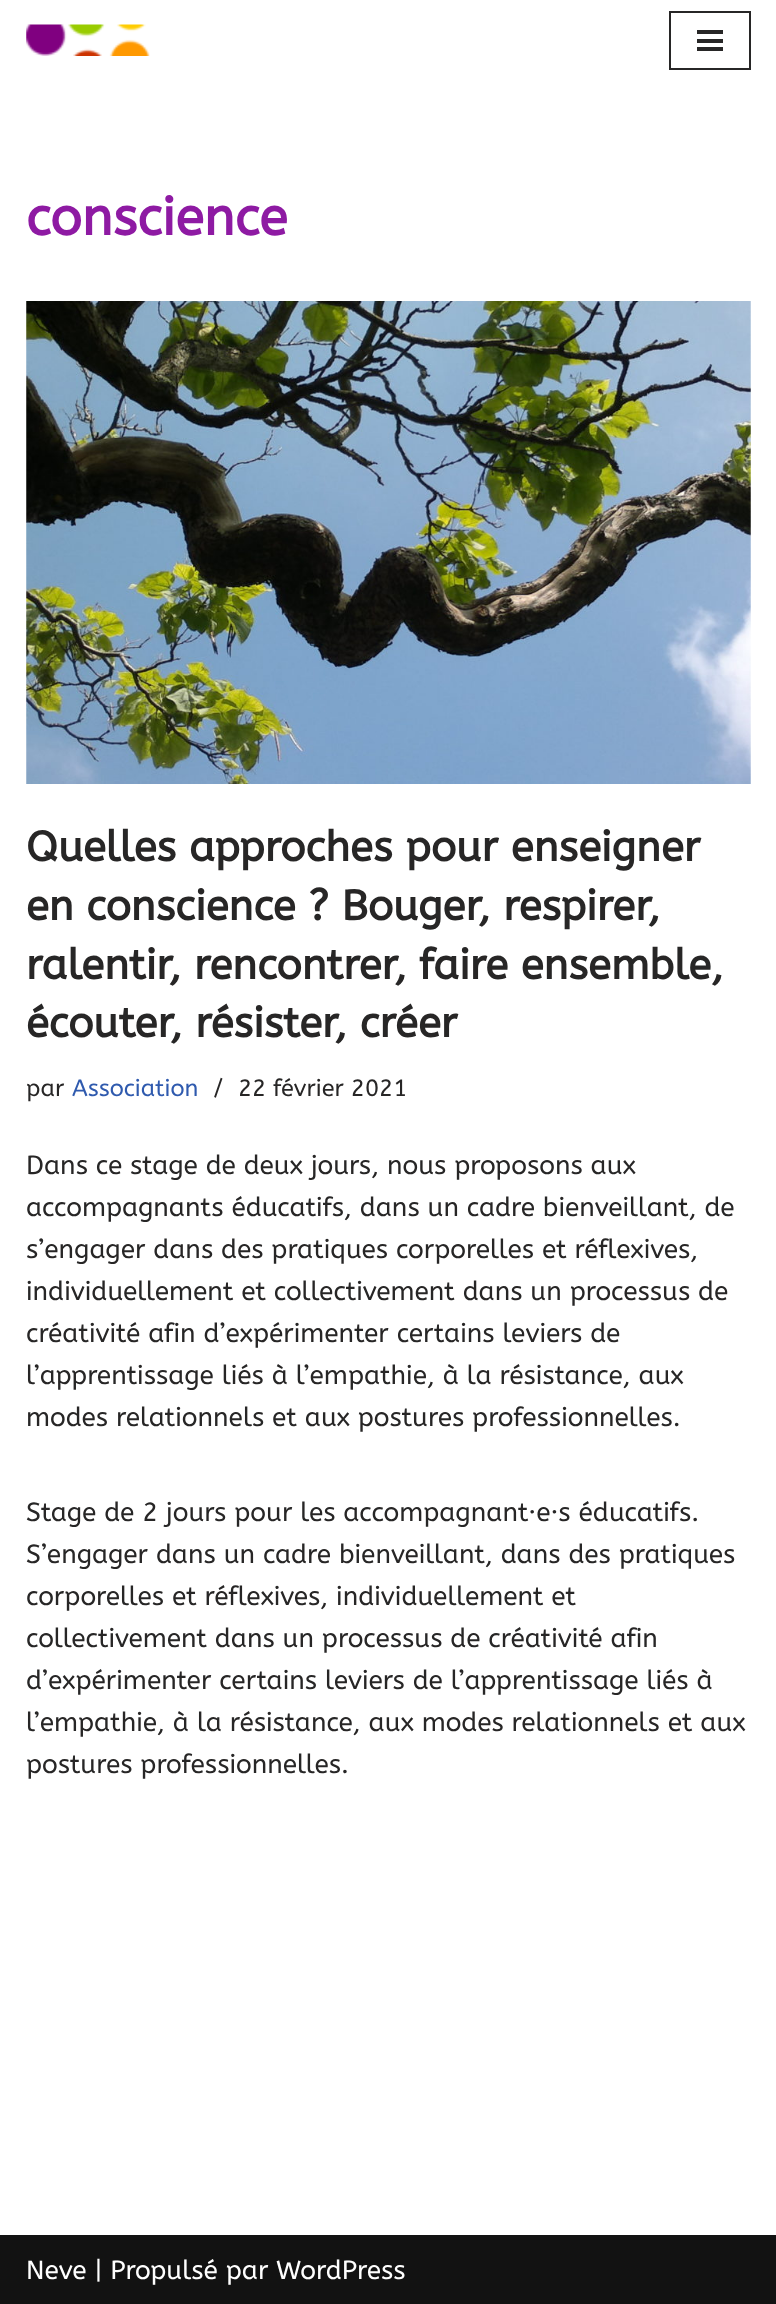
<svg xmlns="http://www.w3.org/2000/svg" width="776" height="2304">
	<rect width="100%" height="100%" fill="#FFFFFF" />
	<image x="26" y="24" width="124" height="32" href="assets/img1.png" />
	<rect x="670" y="12" width="80" height="57" fill="none" stroke="#272626" stroke-width="2" />
	<rect x="697" y="30" width="26" height="4" fill="#272626" />
	<rect x="697" y="39" width="26" height="4" fill="#272626" />
	<rect x="697" y="47" width="26" height="4" fill="#272626" />
	<text x="26" y="235" font-family="ABeeZee" font-size="52.5" font-weight="700" fill="#8E1AA3">conscience</text>
	<image x="26" y="301" width="725" height="483" href="assets/img2.png" />
	<g font-family="ABeeZee" font-size="42" font-weight="700" fill="#272626">
		<text x="26" y="861">Quelles approches pour enseigner</text>
		<text x="26" y="920">en conscience ? Bouger, respirer,</text>
		<text x="26" y="979">ralentir, rencontrer, faire ensemble,</text>
		<text x="26" y="1037">écouter, résister, créer</text>
	</g>
	<text x="26" y="1096" font-family="ABeeZee" font-size="23.5" fill="#272626">par</text>
	<text x="72" y="1096" font-family="ABeeZee" font-size="23.5" fill="#2F5AAE">Association</text>
	<g font-family="ABeeZee" font-size="23.5" fill="#272626">
		<text x="213" y="1096">/</text>
		<text x="238" y="1096">22 février 2021</text>
	</g>
	<g font-family="ABeeZee" font-size="26.25" fill="#272626">
		<text x="26" y="1174">Dans ce stage de deux jours, nous proposons aux</text>
		<text x="26" y="1216">accompagnants éducatifs, dans un cadre bienveillant, de</text>
		<text x="26" y="1258">s’engager dans des pratiques corporelles et réflexives,</text>
		<text x="26" y="1300">individuellement et collectivement dans un processus de</text>
		<text x="26" y="1342">créativité afin d’expérimenter certains leviers de</text>
		<text x="26" y="1384">l’apprentissage liés à l’empathie, à la résistance, aux</text>
		<text x="26" y="1426">modes relationnels et aux postures professionnelles.</text>
		<text x="26" y="1521">Stage de 2 jours pour les accompagnant·e·s éducatifs.</text>
		<text x="26" y="1563">S’engager dans un cadre bienveillant, dans des pratiques</text>
		<text x="26" y="1605">corporelles et réflexives, individuellement et</text>
		<text x="26" y="1647">collectivement dans un processus de créativité afin</text>
		<text x="26" y="1689">d’expérimenter certains leviers de l’apprentissage liés à</text>
		<text x="26" y="1731">l’empathie, à la résistance, aux modes relationnels et aux</text>
		<text x="26" y="1773">postures professionnelles.</text>
	</g>
	<rect x="0" y="2235" width="776" height="69" fill="#121212" />
	<text x="26" y="2279" font-family="ABeeZee" font-size="26.25" fill="#FFFFFF">Neve | Propulsé par WordPress</text>
</svg>
